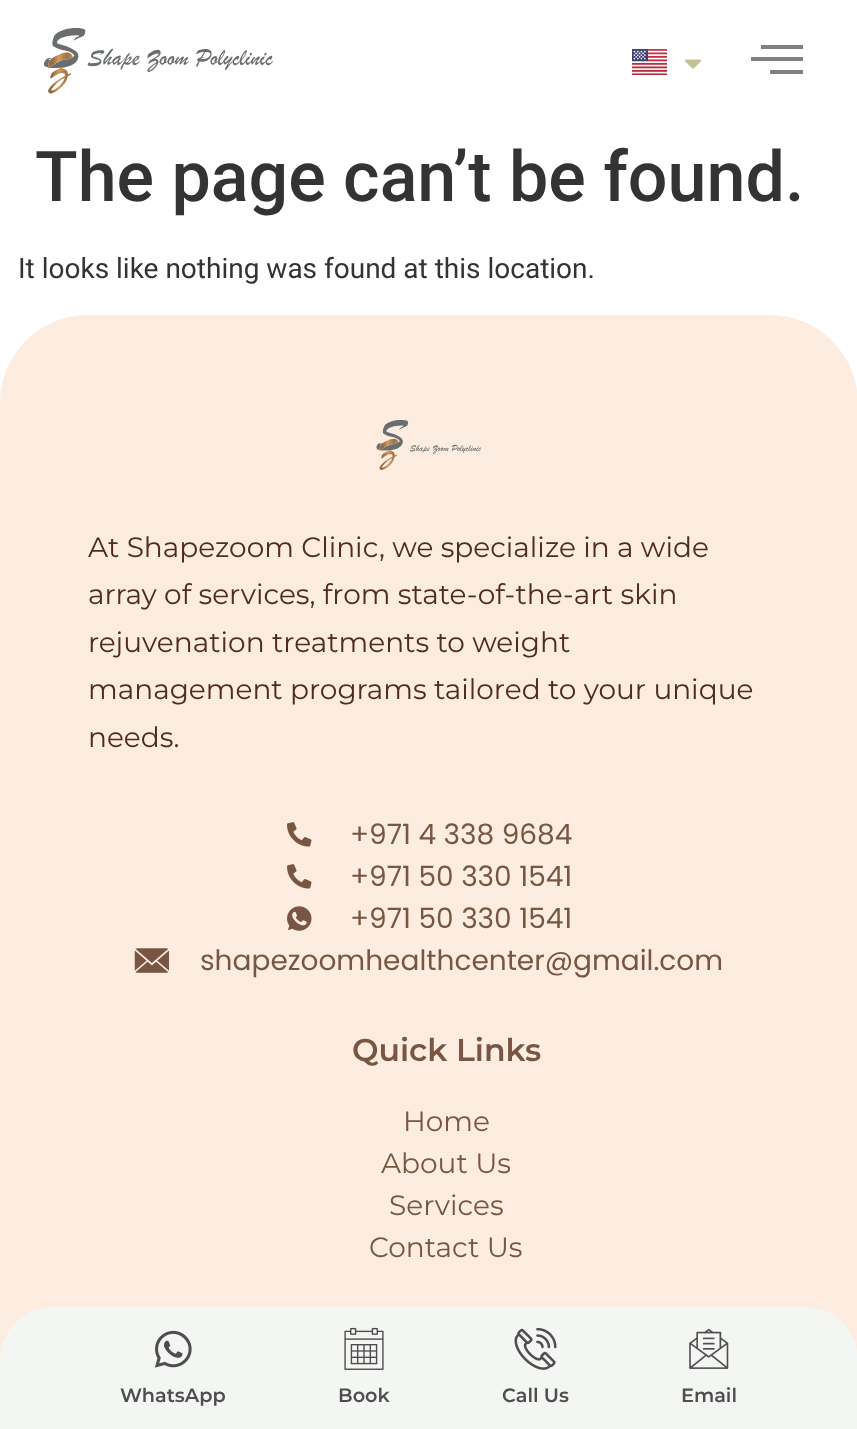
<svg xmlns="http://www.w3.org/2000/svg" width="857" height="1429">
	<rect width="100%" height="100%" fill="#FFFFFF" />
	<text x="35" y="201" font-family="Roboto" font-size="70" font-weight="500" fill="#333333">The page can’t be found.</text>
	<text x="18" y="278" font-family="Roboto" font-size="28" fill="#333333">It looks like nothing was found at this location.</text>
	<path d="M88 315H770C818.5 315 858 354.5 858 403V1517H0V403C0 354.5 39.5 315 88 315Z" fill="#FDEDE0" />
	<image x="376" y="420" width="105" height="50" href="assets/img1.png" />
	<g font-family="Montserrat" font-size="28" fill="#502C1D">
		<text x="88" y="557">At Shapezoom Clinic, we specialize in a wide</text>
		<text x="88" y="604">array of services, from state-of-the-art skin</text>
		<text x="88" y="652">rejuvenation treatments to weight</text>
		<text x="88" y="699">management programs tailored to your unique</text>
		<text x="88" y="747">needs.</text>
	</g>
	<image x="287" y="822" width="25" height="25" href="assets/img2.png" />
	<text x="350" y="844" font-family="Poppins" font-size="28" fill="#795643">+971 4 338 9684</text>
	<image x="287" y="864" width="25" height="25" href="assets/img2.png" />
	<text x="350" y="886" font-family="Poppins" font-size="28" fill="#795643">+971 50 330 1541</text>
	<image x="287" y="906" width="25" height="25" href="assets/img3.png" />
	<text x="350" y="928" font-family="Poppins" font-size="28" fill="#795643">+971 50 330 1541</text>
	<image x="134" y="948" width="36" height="25" href="assets/img4.png" />
	<text x="200" y="970" font-family="Poppins" font-size="28" fill="#795643">shapezoomhealthcenter@gmail.com</text>
	<text x="352" y="1061" font-family="Montserrat" font-size="31.5" font-weight="600" fill="#795643">Quick Links</text>
	<g font-family="Montserrat" font-size="28" fill="#795643">
		<text x="403" y="1131">Home</text>
		<text x="381" y="1173">About Us</text>
		<text x="389" y="1215">Services</text>
		<text x="369" y="1257">Contact Us</text>
	</g>
	<image x="44" y="28" width="229" height="66" href="assets/img5.png" />
	<image x="632" y="49" width="35" height="26" href="assets/img6.png" />
	<image x="684" y="59" width="18" height="10" href="assets/img7.png" />
	<path d="M751 61H803V57H751ZM770 74H803V70H770ZM761 45V49H803V45Z" fill="#808080" />
	<path d="M53 1307H805C834.5 1307 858 1330.5 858 1360V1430H0V1360C0 1330.5 23.5 1307 53 1307Z" fill="#F4F6F3" />
	<image x="154" y="1330" width="38" height="38" href="assets/img8.png" />
	<text x="120" y="1402" font-family="Montserrat" font-size="19.25" font-weight="600" fill="#4E4E4E">WhatsApp</text>
	<image x="344" y="1327" width="40" height="43" href="assets/img9.png" />
	<text x="338" y="1402" font-family="Montserrat" font-size="19.25" font-weight="600" fill="#4E4E4E">Book</text>
	<image x="514" y="1327" width="43" height="43" href="assets/img10.png" />
	<text x="502" y="1402" font-family="Montserrat" font-size="19.25" font-weight="600" fill="#4E4E4E">Call Us</text>
	<image x="689" y="1328" width="40" height="41" href="assets/img11.png" />
	<text x="681" y="1402" font-family="Montserrat" font-size="19.25" font-weight="600" fill="#4E4E4E">Email</text>
</svg>
